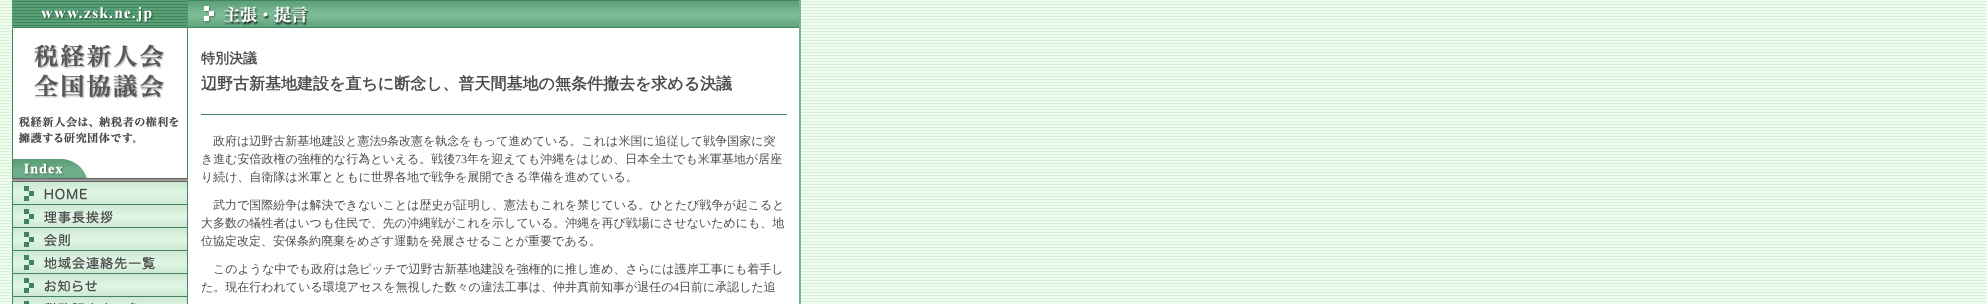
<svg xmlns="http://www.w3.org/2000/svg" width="1987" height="304">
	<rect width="100%" height="100%" fill="#FFFFFF" />
	<image x="0" y="0" width="1987" height="304" href="assets/img1.png" />
	<image x="12" y="0" width="171" height="28" href="assets/img2.png" />
	<image x="12" y="28" width="171" height="150" href="assets/img3.png" />
	<image x="12" y="178" width="171" height="4" href="assets/img4.png" />
	<image x="12" y="182" width="171" height="23" href="assets/img5.png" />
	<image x="12" y="205" width="171" height="23" href="assets/img6.png" />
	<image x="12" y="228" width="171" height="23" href="assets/img7.png" />
	<image x="12" y="251" width="171" height="23" href="assets/img8.png" />
	<image x="12" y="274" width="171" height="23" href="assets/img9.png" />
	<image x="12" y="297" width="171" height="7" href="assets/img10.png" />
	<image x="183" y="0" width="5" height="304" href="assets/img11.png" />
	<rect x="188" y="28" width="611" height="276" fill="#FFFFFF" />
	<image x="188" y="0" width="611" height="28" href="assets/img12.png" />
	<text x="201" y="63" font-family="WenQuanYi Zen Hei" font-size="14" font-weight="700" fill="#4E4E4E">特別決議</text>
	<text x="201" y="89" font-family="WenQuanYi Zen Hei" font-size="16" font-weight="700" fill="#4E4E4E">辺野古新基地建設を直ちに断念し、普天間基地の無条件撤去を求める決議</text>
	<rect x="201" y="114" width="586" height="1" fill="#42845E" />
	<text x="213" y="145" font-family="WenQuanYi Zen Hei" font-size="12" font-weight="500" fill="#4E4E4E">政府は辺野古新基地建設と憲法</text>
	<text x="381" y="145" font-family="Liberation Serif" font-size="12" fill="#4E4E4E">9</text>
	<g font-family="WenQuanYi Zen Hei" font-size="12" font-weight="500" fill="#4E4E4E">
		<text x="387" y="145">条改憲を執念をもって進めている。これは米国に追従して戦争国家に突</text>
		<text x="201" y="163">き進む安倍政権の強権的な行為といえる。戦後</text>
	</g>
	<text x="455" y="163" font-family="Liberation Serif" font-size="12" fill="#4E4E4E">73</text>
	<g font-family="WenQuanYi Zen Hei" font-size="12" font-weight="500" fill="#4E4E4E">
		<text x="467" y="163">年を迎えても沖縄をはじめ、日本全土でも米軍基地が居座</text>
		<text x="201" y="181">り続け、自衛隊は米軍とともに世界各地で戦争を展開できる準備を進めている。</text>
		<text x="213" y="209">武力で国際紛争は解決できないことは歴史が証明し、憲法もこれを禁じている。ひとたび戦争が起こると</text>
		<text x="201" y="227">大多数の犠牲者はいつも住民で、先の沖縄戦がこれを示している。沖縄を再び戦場にさせないためにも、地</text>
		<text x="201" y="245">位協定改定、安保条約廃棄をめざす運動を発展させることが重要である。</text>
		<text x="213" y="273">このような中でも政府は急ピッチで辺野古新基地建設を強権的に推し進め、さらには護岸工事にも着手し</text>
		<text x="201" y="291">た。現在行われている環境アセスを無視した数々の違法工事は、仲井真前知事が退任の</text>
	</g>
	<text x="673" y="291" font-family="Liberation Serif" font-size="12" fill="#4E4E4E">4</text>
	<text x="679" y="291" font-family="WenQuanYi Zen Hei" font-size="12" font-weight="500" fill="#4E4E4E">日前に承認した追</text>
	<rect x="799" y="0" width="2" height="304" fill="#7BB493" />
</svg>
